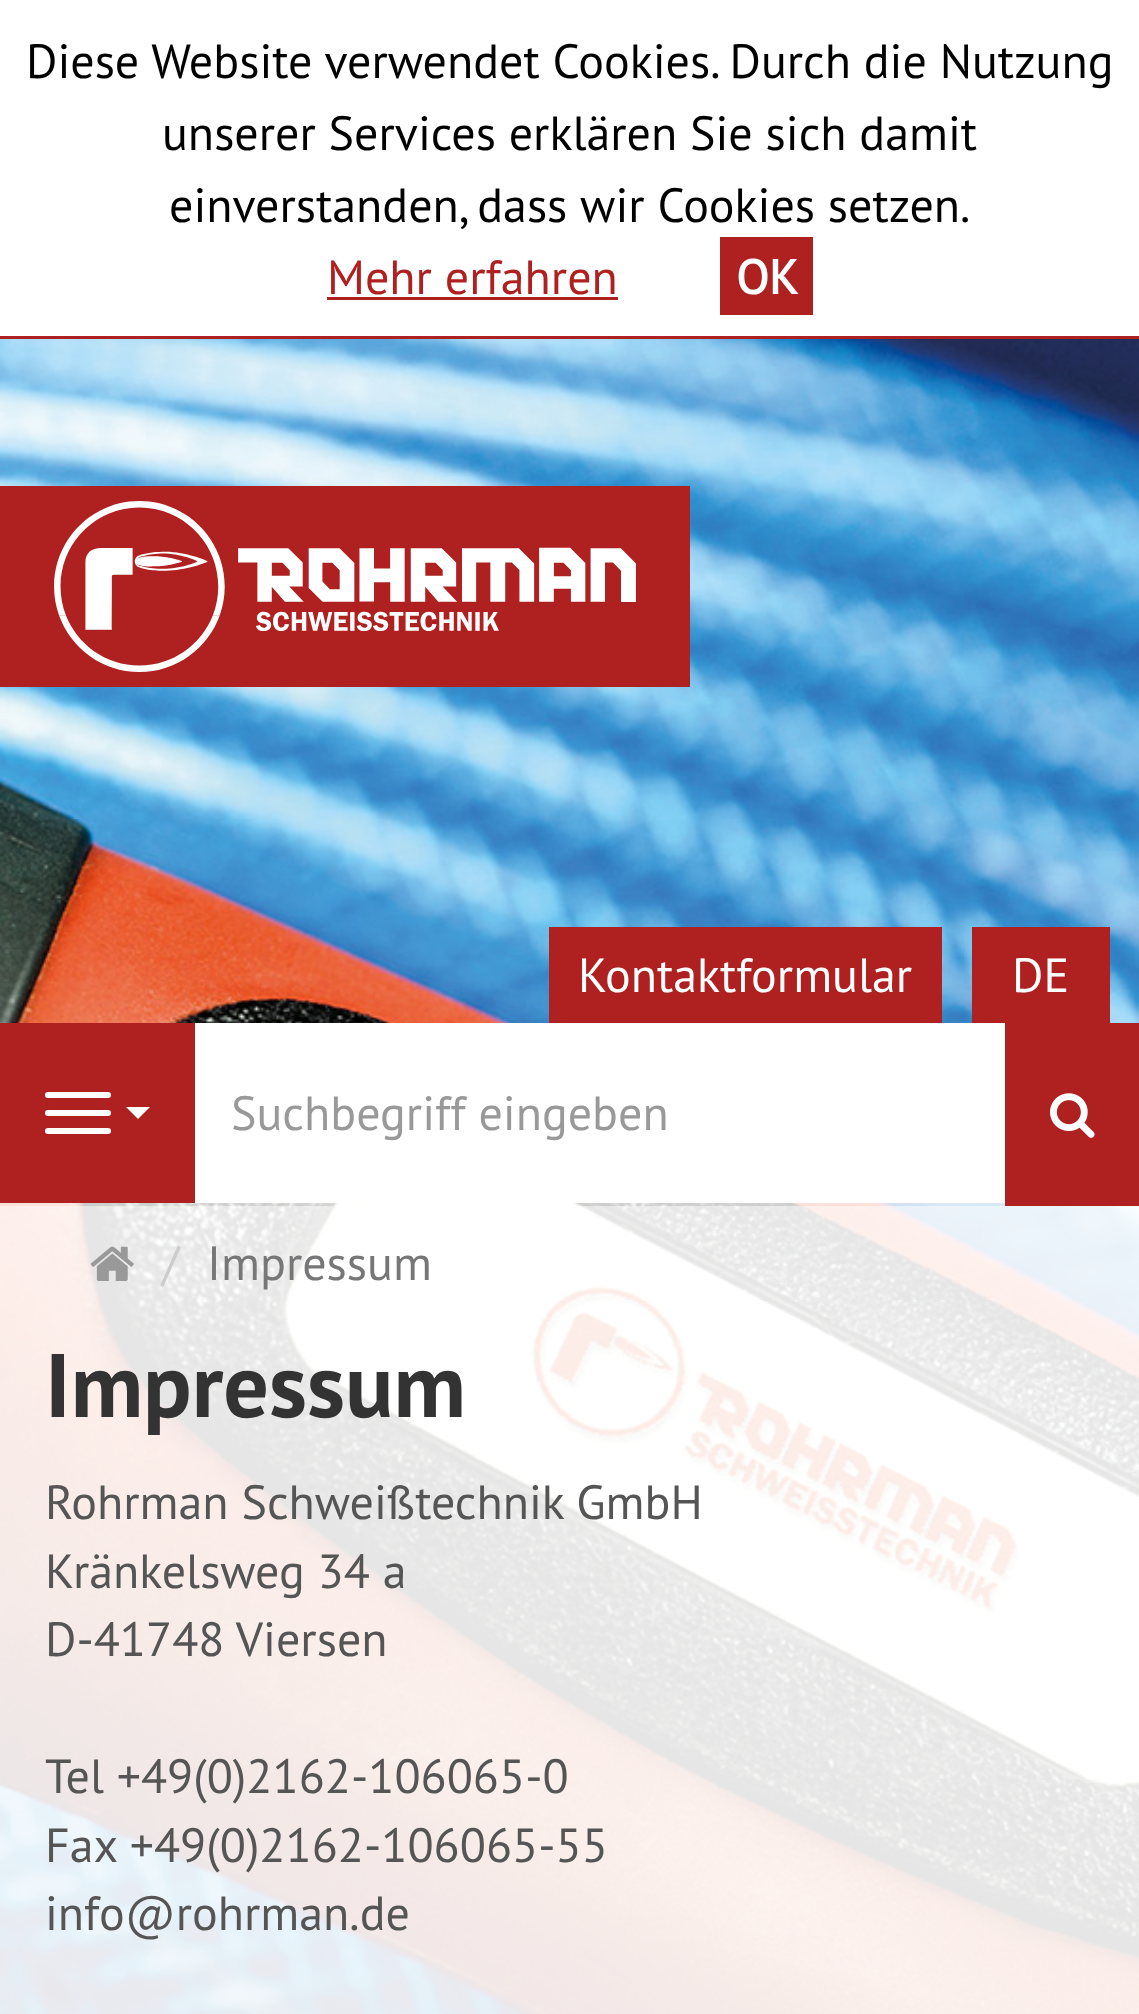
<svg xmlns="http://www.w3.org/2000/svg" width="1139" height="2014">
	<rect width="100%" height="100%" fill="#FFFFFF" />
	<rect x="0" y="336" width="1139" height="3" fill="#AF2120" />
	<g font-family="PT Sans" font-size="48" fill="#000000">
		<text x="26" y="78">Diese Website verwendet Cookies. Durch die Nutzung</text>
		<text x="162" y="150">unserer Services erklären Sie sich damit</text>
		<text x="169" y="222">einverstanden, dass wir Cookies setzen.</text>
	</g>
	<text x="327" y="294" font-family="PT Sans" font-size="48" fill="#AF2120">Mehr erfahren</text>
	<rect x="327" y="297" width="291" height="3" fill="#AF2120" />
	<rect x="720" y="237" width="93" height="78" fill="#AF2120" />
	<text x="736" y="294" font-family="'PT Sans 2'" font-size="48" font-weight="700" fill="#FFFFFF">OK</text>
	<image x="0" y="339" width="1139" height="1675" href="assets/img1.png" />
	<rect x="0" y="486" width="690" height="201" fill="#AF2120" />
	<image x="54" y="501" width="582" height="171" href="assets/img2.png" />
	<rect x="549" y="927" width="393" height="96" fill="#AF2120" />
	<text x="578" y="992" font-family="PT Sans" font-size="48" fill="#FFFFFF">Kontaktformular</text>
	<rect x="972" y="927" width="138" height="96" fill="#AF2120" />
	<text x="1012" y="992" font-family="PT Sans" font-size="48" fill="#FFFFFF">DE</text>
	<rect x="0" y="1203" width="1005" height="3" fill="#FFFFFF" fill-opacity="0.8" />
	<rect x="0" y="1023" width="195" height="180" fill="#AF2120" />
	<rect x="45" y="1092" width="66" height="6" rx="3" fill="#FFFFFF" />
	<rect x="45" y="1110" width="66" height="6" rx="3" fill="#FFFFFF" />
	<rect x="45" y="1128" width="66" height="6" rx="3" fill="#FFFFFF" />
	<path d="M126 1107H150L138 1119Z" fill="#FFFFFF" />
	<rect x="195" y="1023" width="810" height="180" fill="#FFFFFF" />
	<text x="231" y="1130" font-family="PT Sans" font-size="48" fill="#999999">Suchbegriff eingeben</text>
	<rect x="1005" y="1023" width="134" height="183" fill="#AF2120" />
	<image x="1050" y="1093" width="45" height="45" href="assets/img3.png" />
	<rect x="0" y="1206" width="1139" height="808" fill="#FFFFFF" fill-opacity="0.9" />
	<image x="90" y="1246" width="44" height="35" href="assets/img4.png" />
	<text x="162" y="1280" font-family="PT Sans" font-size="48" fill="#CCCCCC">/</text>
	<text x="207" y="1280" font-family="PT Sans" font-size="48" fill="#777777">Impressum</text>
	<text x="45" y="1417" font-family="PT Sans" font-size="90" font-weight="700" fill="#333333">Impressum</text>
	<g font-family="PT Sans" font-size="48" fill="#555555">
		<text x="45" y="1519">Rohrman Schweißtechnik GmbH</text>
		<text x="45" y="1588">Kränkelsweg 34 a</text>
		<text x="45" y="1656">D-41748 Viersen</text>
		<text x="45" y="1793">Tel +49(0)2162-106065-0</text>
		<text x="45" y="1862">Fax +49(0)2162-106065-55</text>
		<text x="45" y="1930">info@rohrman.de</text>
	</g>
</svg>
